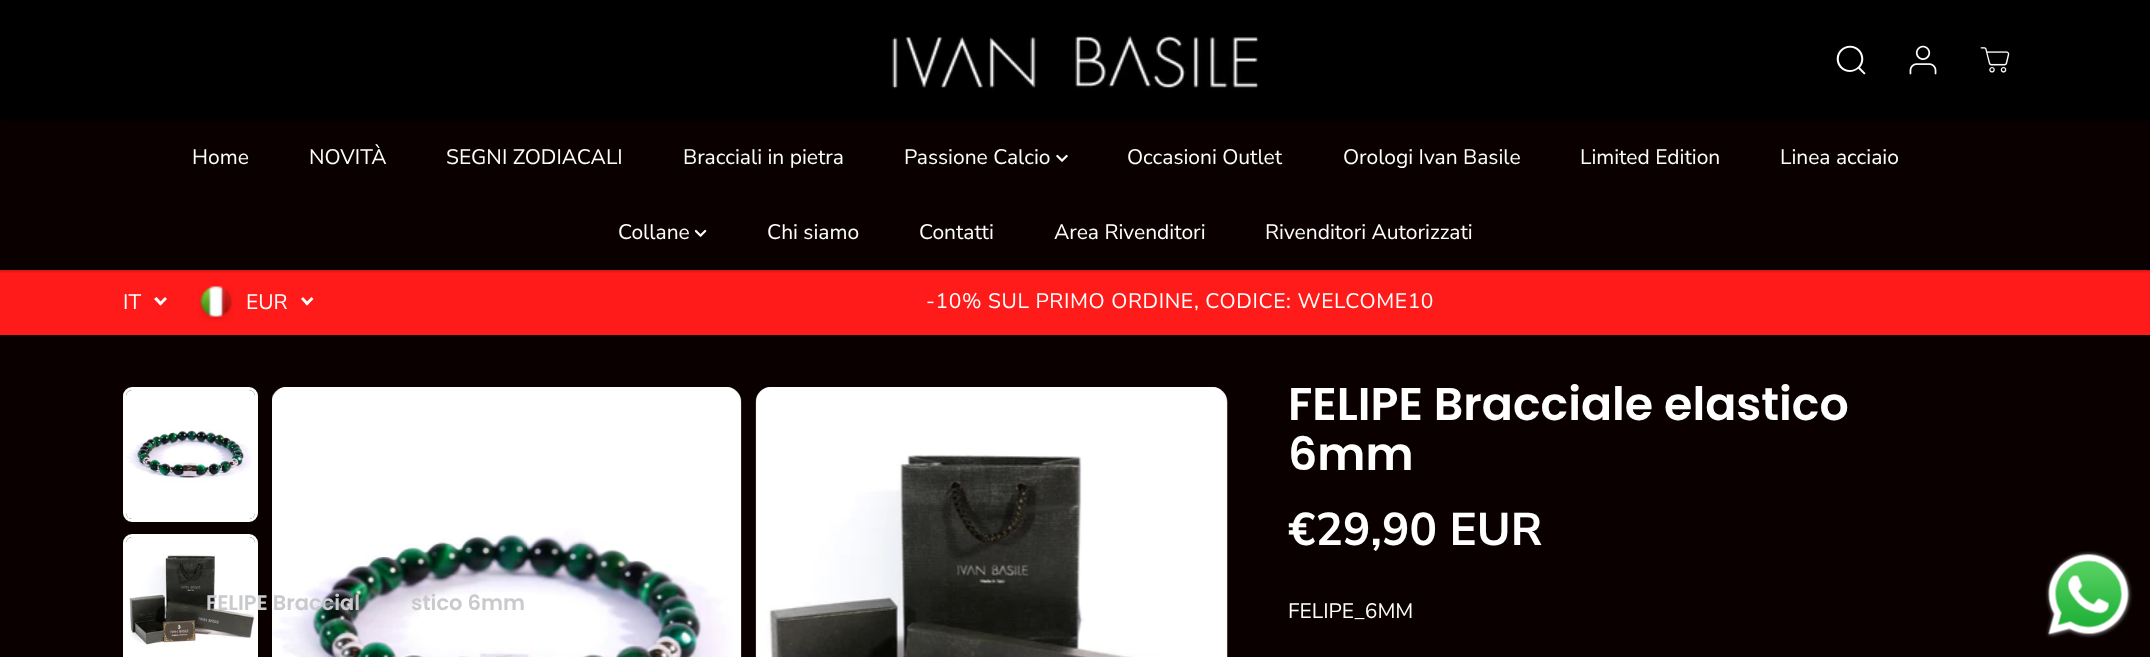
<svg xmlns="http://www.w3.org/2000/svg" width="2150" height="657">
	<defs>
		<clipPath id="clip1"><rect x="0" y="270" width="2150" height="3" /></clipPath>
	</defs>
	<rect width="100%" height="100%" fill="#0A0000" />
	<rect x="0" y="0" width="2150" height="120" fill="#000000" />
	<rect x="0" y="270" width="2150" height="65" fill="#FF1B19" />
	<g clip-path="url(#clip1)">
		<rect x="0" y="3" width="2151" height="270" fill="#000000" fill-opacity="0.05" filter="blur(1.5px)" />
	</g>
	<image x="890" y="35" width="369" height="55" href="assets/img1.png" />
	<image x="1836" y="45" width="30" height="30" href="assets/img2.png" />
	<image x="1909" y="45" width="28" height="30" href="assets/img3.png" />
	<image x="1980" y="47" width="30" height="26" href="assets/img4.png" />
	<rect x="-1" y="120" width="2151" height="150" fill="#000000" fill-opacity="0.3" filter="blur(1.5px)" />
	<rect x="1" y="122" width="2147" height="146" fill="#0A0000" />
	<g font-family="Nunito Sans" font-size="21" fill="#FFFFFF">
		<text x="192" y="164">Home</text>
		<text x="309" y="164">NOVITÀ</text>
		<text x="446" y="164">SEGNI ZODIACALI</text>
		<text x="683" y="164">Bracciali in pietra</text>
		<text x="904" y="164">Passione Calcio</text>
	</g>
	<image x="1056" y="154" width="12" height="8" href="assets/img5.png" />
	<g font-family="Nunito Sans" font-size="21" fill="#FFFFFF">
		<text x="1127" y="164">Occasioni Outlet</text>
		<text x="1343" y="164">Orologi Ivan Basile</text>
		<text x="1580" y="164">Limited Edition</text>
		<text x="1780" y="164">Linea acciaio</text>
		<text x="618" y="239">Collane</text>
	</g>
	<image x="695" y="229" width="12" height="8" href="assets/img6.png" />
	<g font-family="Nunito Sans" font-size="21" fill="#FFFFFF">
		<text x="767" y="239">Chi siamo</text>
		<text x="919" y="239">Contatti</text>
		<text x="1054" y="239">Area Rivenditori</text>
		<text x="1265" y="239">Rivenditori Autorizzati</text>
		<text x="123" y="309">IT</text>
	</g>
	<path d="M165 297L167 299L160.5 305.5L158.5 303.5Z" fill="#FFFFFF" />
	<path d="M156.5 297L162.5 303.5L160.5 305.5L154 299Z" fill="#FFFFFF" />
	<image x="198" y="286" width="36" height="36" href="assets/img7.png" />
	<text x="246" y="309" font-family="Nunito Sans" font-size="21" fill="#FFFFFF">EUR</text>
	<path d="M311.5 297L313.5 299L307 305.5L305 303.5Z" fill="#FFFFFF" />
	<path d="M303 297L309 303.5L307 305.5L301 299Z" fill="#FFFFFF" />
	<text x="926" y="308" font-family="Nunito Sans" font-size="21" letter-spacing="0.6" fill="#FFFFFF">-10% SUL PRIMO ORDINE, CODICE: WELCOME10</text>
	<rect x="124.5" y="535.5" width="132" height="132" rx="7.5" fill="none" stroke="#FFFFFF" stroke-width="3" />
	<image x="126" y="537" width="129" height="120" href="assets/img9.png" />
	<rect x="272" y="387" width="469" height="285" rx="15" fill="#F3EFEC" />
	<image x="272" y="387" width="470" height="270" href="assets/img10.png" />
	<g font-family="Poppins" font-size="21" font-weight="600" fill="#C9CACD">
		<text x="206" y="610">FELIPE Braccial</text>
		<text x="411" y="610">stico 6mm</text>
	</g>
	<rect x="124.5" y="388.5" width="132" height="132" rx="7.5" fill="none" stroke="#FFFFFF" stroke-width="3" />
	<image x="126" y="390" width="129" height="129" href="assets/img8.png" />
	<rect x="756" y="387" width="471" height="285" rx="15" fill="#F3EFEC" />
	<image x="755" y="387" width="473" height="270" href="assets/img11.png" />
	<g font-family="Poppins" font-size="45.9" font-weight="600" fill="#FFFFFF">
		<text x="1288" y="420">FELIPE Bracciale elastico</text>
		<text x="1288" y="470">6mm</text>
	</g>
	<text x="1288" y="545" font-family="Nunito Sans" font-size="45.9" font-weight="700" fill="#FFFFFF">€29,90 EUR</text>
	<text x="1288" y="618" font-family="Nunito Sans" font-size="21" fill="#FFFFFF">FELIPE_6MM</text>
	<image x="2045" y="551" width="88" height="87" href="assets/img12.png" />
</svg>
